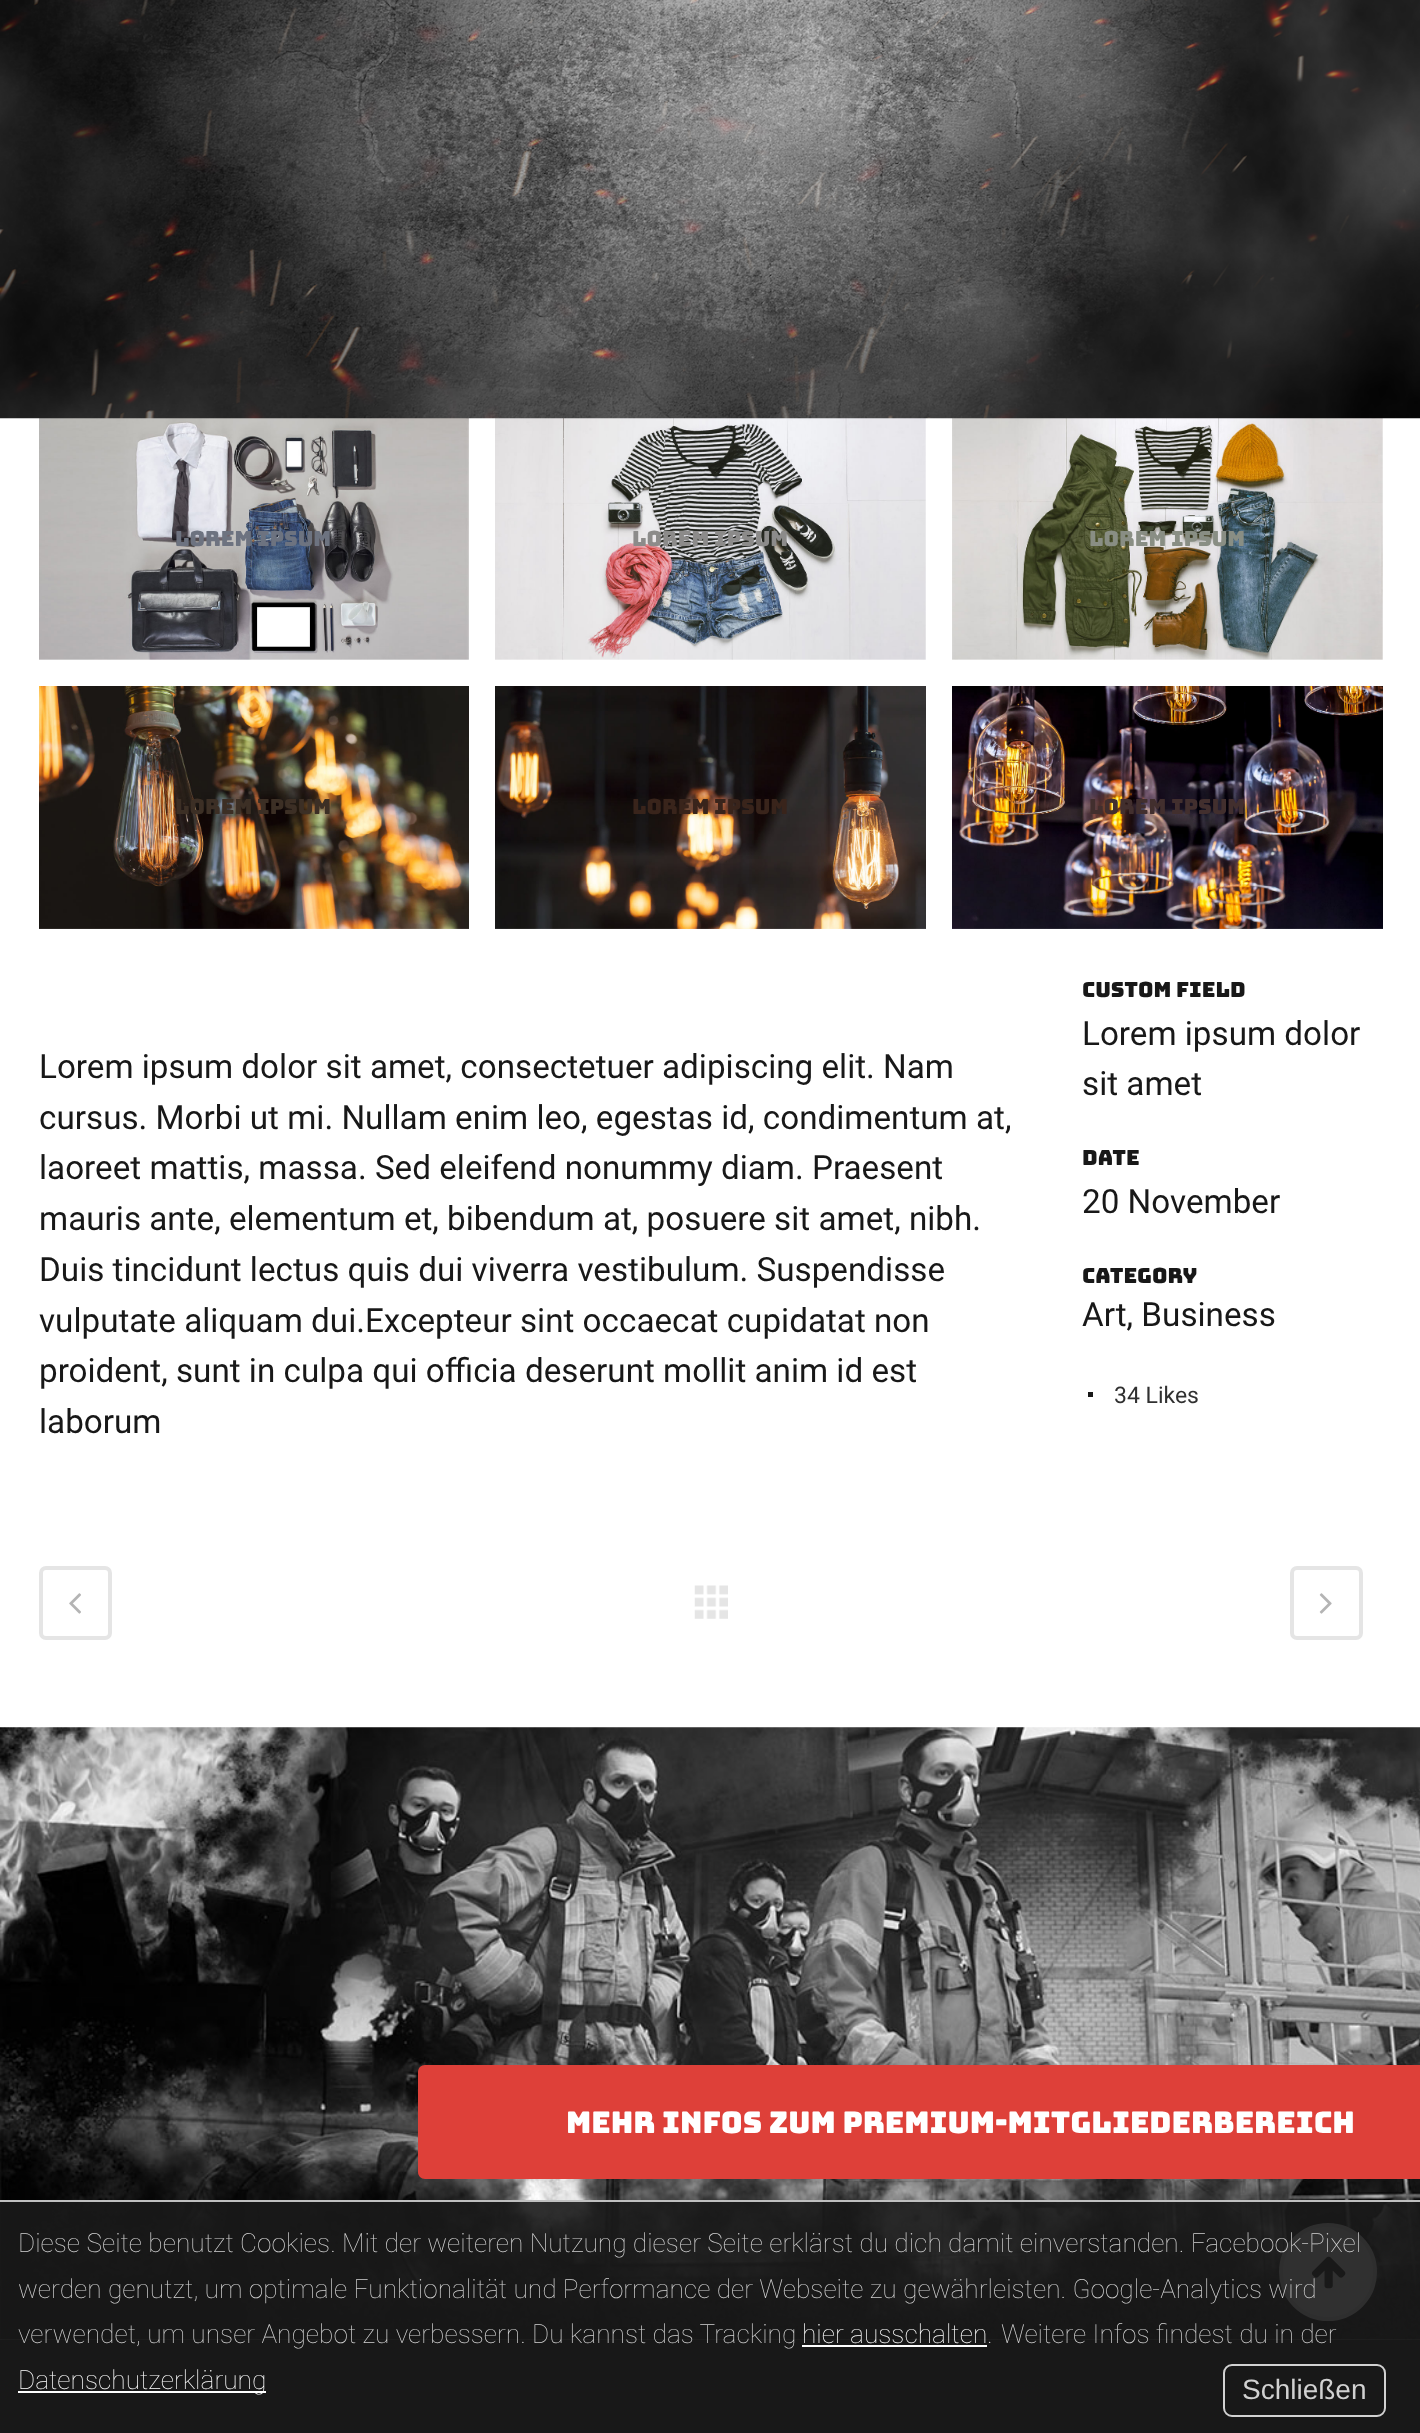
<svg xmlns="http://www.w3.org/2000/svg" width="1420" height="2433">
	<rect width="100%" height="100%" fill="#FFFFFF" />
	<image x="39" y="418" width="430" height="242" href="assets/img2.png" />
	<image x="495" y="418" width="431" height="242" href="assets/img3.png" />
	<image x="952" y="418" width="431" height="242" href="assets/img4.png" />
	<image x="0" y="0" width="1420" height="419" href="assets/img1.png" />
	<text x="175" y="546" font-family="Bungee" font-size="21" fill="#6D7380">LOREM IPSUM</text>
	<text x="632" y="546" font-family="Bungee" font-size="21" fill="#8C8B8A">LOREM IPSUM</text>
	<text x="1089" y="546" font-family="Bungee" font-size="21" fill="#898E84">LOREM IPSUM</text>
	<image x="39" y="686" width="430" height="243" href="assets/img5.png" />
	<text x="175" y="814" font-family="Bungee" font-size="21" fill="#3C2F25">LOREM IPSUM</text>
	<image x="495" y="686" width="431" height="243" href="assets/img6.png" />
	<text x="632" y="814" font-family="Bungee" font-size="21" fill="#39241B">LOREM IPSUM</text>
	<image x="952" y="686" width="431" height="243" href="assets/img7.png" />
	<text x="1089" y="814" font-family="Bungee" font-size="21" fill="#422F2E">LOREM IPSUM</text>
	<g font-family="Roboto" font-size="33.25" fill="#181818">
		<text x="39" y="1078">Lorem ipsum dolor sit amet, consectetuer adipiscing elit. Nam</text>
		<text x="39" y="1129">cursus. Morbi ut mi. Nullam enim leo, egestas id, condimentum at,</text>
		<text x="39" y="1179">laoreet mattis, massa. Sed eleifend nonummy diam. Praesent</text>
		<text x="39" y="1230">mauris ante, elementum et, bibendum at, posuere sit amet, nibh.</text>
		<text x="39" y="1281">Duis tincidunt lectus quis dui viverra vestibulum. Suspendisse</text>
		<text x="39" y="1332">vulputate aliquam dui.Excepteur sint occaecat cupidatat non</text>
		<text x="39" y="1382">proident, sunt in culpa qui officia deserunt mollit anim id est</text>
		<text x="39" y="1433">laborum</text>
	</g>
	<text x="1082" y="997" font-family="Bungee" font-size="21" fill="#181818">CUSTOM FIELD</text>
	<g font-family="Roboto" font-size="33.25" fill="#181818">
		<text x="1082" y="1045">Lorem ipsum dolor</text>
		<text x="1082" y="1095">sit amet</text>
	</g>
	<text x="1082" y="1165" font-family="Bungee" font-size="21" fill="#181818">DATE</text>
	<text x="1082" y="1213" font-family="Roboto" font-size="33.25" fill="#181818">20 November</text>
	<text x="1082" y="1283" font-family="Bungee" font-size="21" fill="#181818">CATEGORY</text>
	<text x="1082" y="1326" font-family="Roboto" font-size="33.25" fill="#181818">Art, Business</text>
	<rect x="1088" y="1392" width="5" height="5" fill="#181818" />
	<text x="1114" y="1403" font-family="Roboto" font-size="23" fill="#303030">34 Likes</text>
	<rect x="41" y="1568" width="69" height="70" rx="5" fill="none" stroke="#E5E5E5" stroke-width="4" />
	<image x="69" y="1593" width="12" height="21" href="assets/img8.png" />
	<image x="694" y="1585" width="34" height="34" href="assets/img9.png" />
	<rect x="1292" y="1568" width="69" height="70" rx="5" fill="none" stroke="#E5E5E5" stroke-width="4" />
	<image x="1319" y="1593" width="13" height="21" href="assets/img10.png" />
	<image x="0" y="1727" width="1420" height="613" href="assets/img11.png" />
	<path d="M425 2065H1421V2179H425C421 2179 418 2176 418 2172V2072C418 2068 421 2065 425 2065Z" fill="#DE4039" />
	<text x="566" y="2133" font-family="Bungee" font-size="29.75" fill="#FFFFFF">MEHR INFOS ZUM PREMIUM-MITGLIEDERBEREICH</text>
	<rect x="0" y="2340" width="1420" height="93" fill="#0A0A0A" />
	<circle cx="1328" cy="2272" r="47" fill="#FFFFFF" stroke="#E8E8E8" stroke-width="4" />
	<image x="1311" y="2256" width="35" height="33" href="assets/img12.png" />
	<rect x="0" y="2200" width="1420" height="233" fill="#191919" fill-opacity="0.9" />
	<rect x="0" y="2200" width="1420" height="2" fill="#D1D1D1" fill-opacity="0.9" />
	<g font-family="Roboto" font-size="26.25" font-weight="100" fill="#D1D1D1">
		<text x="18" y="2252">Diese Seite benutzt Cookies. Mit der weiteren Nutzung dieser Seite erklärst du dich damit einverstanden. Facebook-Pixel</text>
		<text x="18" y="2298">werden genutzt, um optimale Funktionalität und Performance der Webseite zu gewährleisten. Google-Analytics wird</text>
		<text x="18" y="2343">verwendet, um unser Angebot zu verbessern. Du kannst das Tracking</text>
	</g>
	<text x="802" y="2343" font-family="Roboto" font-size="26.25" font-weight="100" fill="#FFFFFF">hier ausschalten</text>
	<text x="987" y="2343" font-family="Roboto" font-size="26.25" font-weight="100" fill="#D1D1D1">.</text>
	<rect x="802" y="2345" width="185" height="2" fill="#FFFFFF" />
	<text x="1001" y="2343" font-family="Roboto" font-size="26.25" font-weight="100" fill="#D1D1D1">Weitere Infos findest du in der</text>
	<rect x="18" y="2391" width="248" height="2" fill="#FFFFFF" />
	<text x="18" y="2389" font-family="Roboto" font-size="26.25" font-weight="100" fill="#FFFFFF">Datenschutzerklärung</text>
	<rect x="1224" y="2365" width="161" height="51" rx="8" fill="none" stroke="#D1D1D1" stroke-width="2" />
	<text x="1242" y="2399" font-family="Liberation Sans" font-size="28" fill="#D1D1D1">Schließen</text>
</svg>
